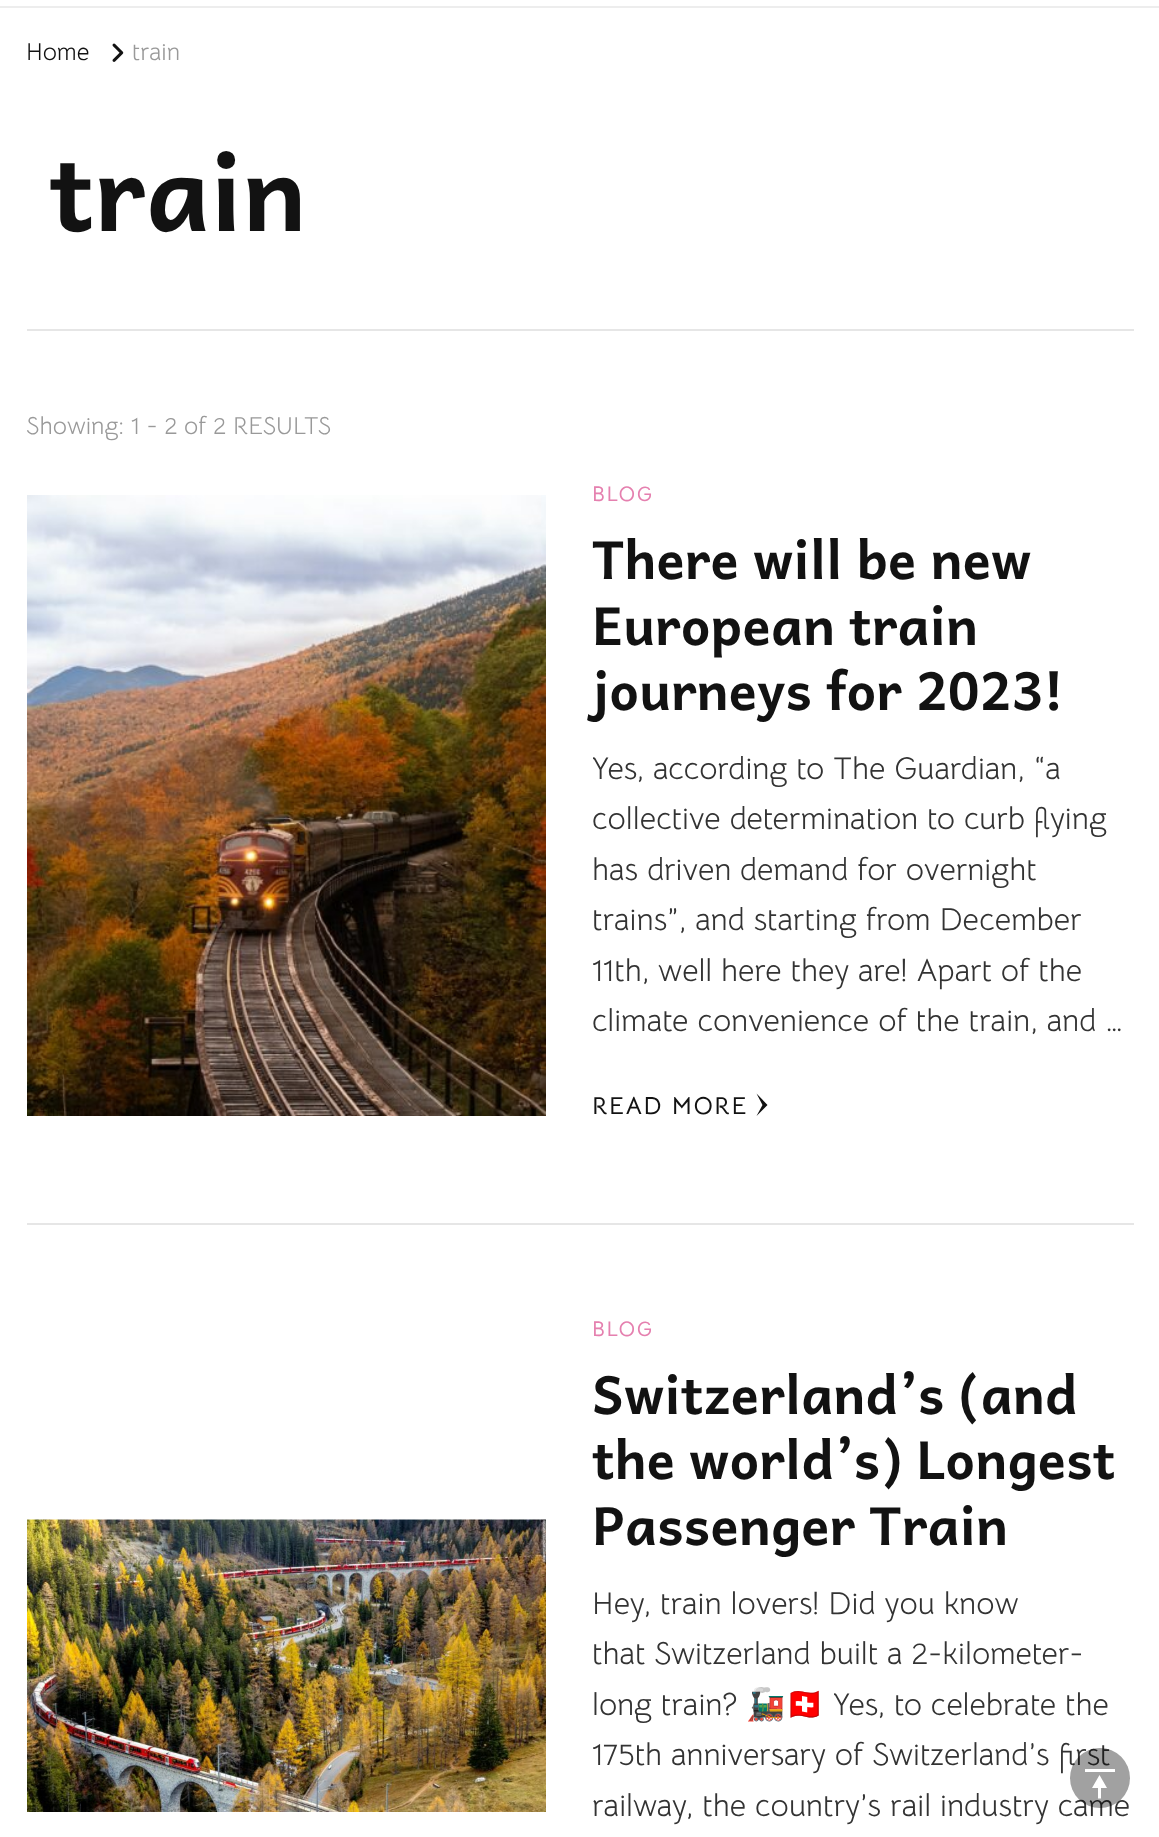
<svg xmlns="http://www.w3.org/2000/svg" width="1159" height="1837">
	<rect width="100%" height="100%" fill="#FFFFFF" />
	<rect x="0" y="6" width="1159" height="2" fill="#EDEDED" />
	<text x="26" y="60" font-family="Bellota Text" font-size="24.5" fill="#121212">Home</text>
	<image x="112" y="43" width="12" height="19" href="assets/img1.png" />
	<text x="132" y="60" font-family="Bellota Text" font-size="24.5" fill="#999999">train</text>
	<rect x="27" y="329" width="1107" height="2" fill="#E6E6E6" />
	<text x="49" y="231" font-family="Andika" font-size="105" font-weight="700" fill="#121212">train</text>
	<text x="26" y="434" font-family="Bellota Text" font-size="24.5" fill="#999999">Showing: 1 - 2 of 2 RESULTS</text>
	<rect x="27" y="1223" width="1107" height="2" fill="#E6E6E6" />
	<image x="27" y="495" width="519" height="621" href="assets/img2.png" />
	<text x="592" y="501" font-family="Bellota Text" font-size="21" font-weight="700" letter-spacing="1.5" fill="#E580AF">BLOG</text>
	<g font-family="Andika" font-size="52.6" font-weight="700" fill="#121212">
		<text x="592" y="579">There will be new</text>
		<text x="592" y="645">European train</text>
		<text x="592" y="710">journeys for 2023!</text>
	</g>
	<g font-family="Bellota Text" font-size="31.5" fill="#333333">
		<text x="592" y="779">Yes, according to The Guardian, “a</text>
		<text x="592" y="829">collective determination to curb flying</text>
		<text x="592" y="880">has driven demand for overnight</text>
		<text x="592" y="930">trains”, and starting from December</text>
		<text x="592" y="981">11th, well here they are! Apart of the</text>
		<text x="592" y="1031">climate convenience of the train, and …</text>
	</g>
	<text x="592" y="1114" font-family="Bellota Text" font-size="24.5" font-weight="700" letter-spacing="1.5" fill="#121212">READ MORE</text>
	<path d="M767.5 1105L756.5 1116L762.5 1105L756.5 1093.5Z" fill="#121212" />
	<image x="27" y="1519" width="519" height="293" href="assets/img3.png" />
	<text x="592" y="1336" font-family="Bellota Text" font-size="21" font-weight="700" letter-spacing="1.5" fill="#E580AF">BLOG</text>
	<g font-family="Andika" font-size="52.6" font-weight="700" fill="#121212">
		<text x="592" y="1414">Switzerland’s (and</text>
		<text x="592" y="1479">the world’s) Longest</text>
		<text x="592" y="1545">Passenger Train</text>
	</g>
	<g font-family="Bellota Text" font-size="31.5" fill="#333333">
		<text x="592" y="1614">Hey, train lovers! Did you know</text>
		<text x="592" y="1664">that Switzerland built a 2-kilometer-</text>
		<text x="592" y="1715">long train?</text>
	</g>
	<text x="746" y="1715" font-family="Noto Color Emoji" font-size="31.5" fill="#333333">🚂🇨🇭</text>
	<g font-family="Bellota Text" font-size="31.5" fill="#333333">
		<text x="833" y="1715">Yes, to celebrate the</text>
		<text x="592" y="1765">175th anniversary of Switzerland’s first</text>
		<text x="592" y="1816">railway, the country’s rail industry came</text>
	</g>
	<circle cx="1100" cy="1778" r="30" fill="#000000" fill-opacity="0.37" />
	<rect x="1085" y="1769" width="30" height="3" fill="#FFFFFF" />
	<path d="M1107 1788L1099.5 1775L1092 1788H1098V1798.5H1101V1788Z" fill="#FFFFFF" />
</svg>
